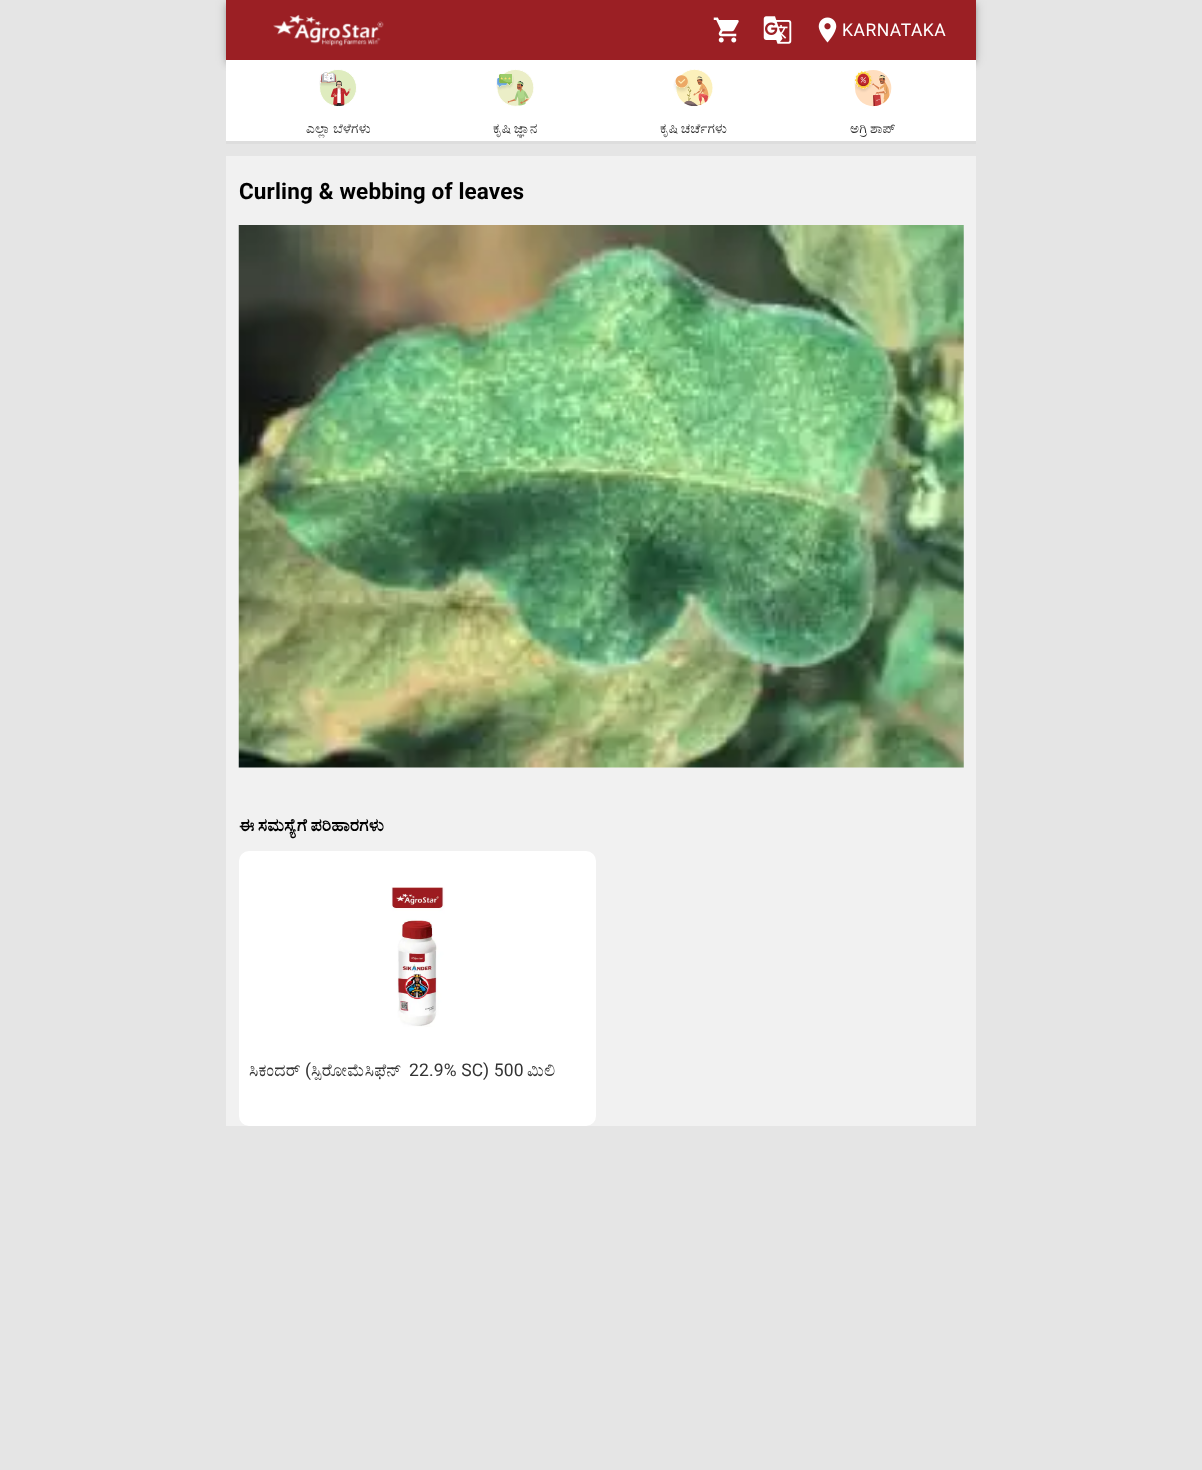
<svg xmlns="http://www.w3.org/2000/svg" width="1202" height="1470">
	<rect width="100%" height="100%" fill="#E5E5E5" />
	<rect x="226" y="1" width="750" height="60" fill="#000000" fill-opacity="0.12" filter="blur(6px)" />
	<rect x="226" y="5" width="750" height="60" fill="#000000" fill-opacity="0.14" filter="blur(3px)" />
	<rect x="228" y="4" width="747" height="57" fill="#000000" fill-opacity="0.2" filter="blur(2.5px)" />
	<rect x="226" y="0" width="750" height="60" fill="#9B1F24" />
	<image x="273" y="14" width="111" height="33" href="assets/img1.png" />
	<image x="713" y="17" width="26" height="26" href="assets/img2.png" />
	<image x="763" y="16" width="29" height="28" href="assets/img3.png" />
	<image x="818" y="17" width="19" height="26" href="assets/img4.png" />
	<text x="842" y="36" font-family="Roboto" font-size="17.5" letter-spacing="0.5" fill="#FFFFFF">KARNATAKA</text>
	<rect x="226" y="60" width="750" height="81" fill="#FFFFFF" />
	<rect x="226" y="141" width="750" height="3" fill="#DDDDDD" />
	<image x="319" y="69" width="38" height="38" href="assets/img5.png" />
	<text x="306" y="133" word-spacing="-1" font-family="FreeSerif" font-size="13.75" letter-spacing="0.1" fill="#333333">ಎಲ್ಲಾ ಬೆಳೆಗಳು</text>
	<image x="496" y="69" width="38" height="38" href="assets/img6.png" />
	<text x="493" y="133" word-spacing="-1" font-family="FreeSerif" font-size="13.75" letter-spacing="0.1" fill="#333333">ಕೃಷಿ ಜ್ಞಾನ</text>
	<image x="673" y="69" width="40" height="38" href="assets/img7.png" />
	<text x="660" y="133" word-spacing="-1" font-family="FreeSerif" font-size="13.75" letter-spacing="0.1" fill="#333333">ಕೃಷಿ ಚರ್ಚೆಗಳು</text>
	<image x="854" y="70" width="38" height="37" href="assets/img8.png" />
	<text x="850" y="133" word-spacing="-1" font-family="FreeSerif" font-size="13.75" letter-spacing="0.1" fill="#333333">ಅಗ್ರಿ ಶಾಪ್</text>
	<rect x="226" y="156" width="750" height="970" fill="#F1F1F1" />
	<text x="239" y="199" font-family="Roboto" font-size="22.5" font-weight="700" letter-spacing="0.15" fill="#000000">Curling &amp; webbing of leaves</text>
	<image x="238" y="225" width="726" height="543" href="assets/img9.png" />
	<text x="239" y="831" word-spacing="-1" font-family="FreeSerif" font-size="17.5" font-weight="700" letter-spacing="0.15" fill="#000000">ಈ ಸಮಸ್ಯೆಗೆ ಪರಿಹಾರಗಳು</text>
	<rect x="239" y="851" width="357" height="275" rx="10" fill="#FFFFFF" />
	<image x="391" y="887" width="54" height="140" href="assets/img10.png" />
	<text x="249" y="1076" font-family="FreeSerif" font-size="17.5" letter-spacing="0.15" fill="#333333">ಸಿಕಂದರ್</text>
	<g font-family="Roboto" font-size="17.5" letter-spacing="0.15" fill="#333333">
		<text x="305" y="1076">(</text>
		<text x="409" y="1076">22.9% SC) 500</text>
	</g>
	<g font-family="FreeSerif" font-size="17.5" letter-spacing="0.15" fill="#333333">
		<text x="311" y="1076">ಸ್ಪಿರೋಮೆಸಿಫೆನ್</text>
		<text x="527" y="1076">ಮಿಲಿ</text>
	</g>
</svg>
